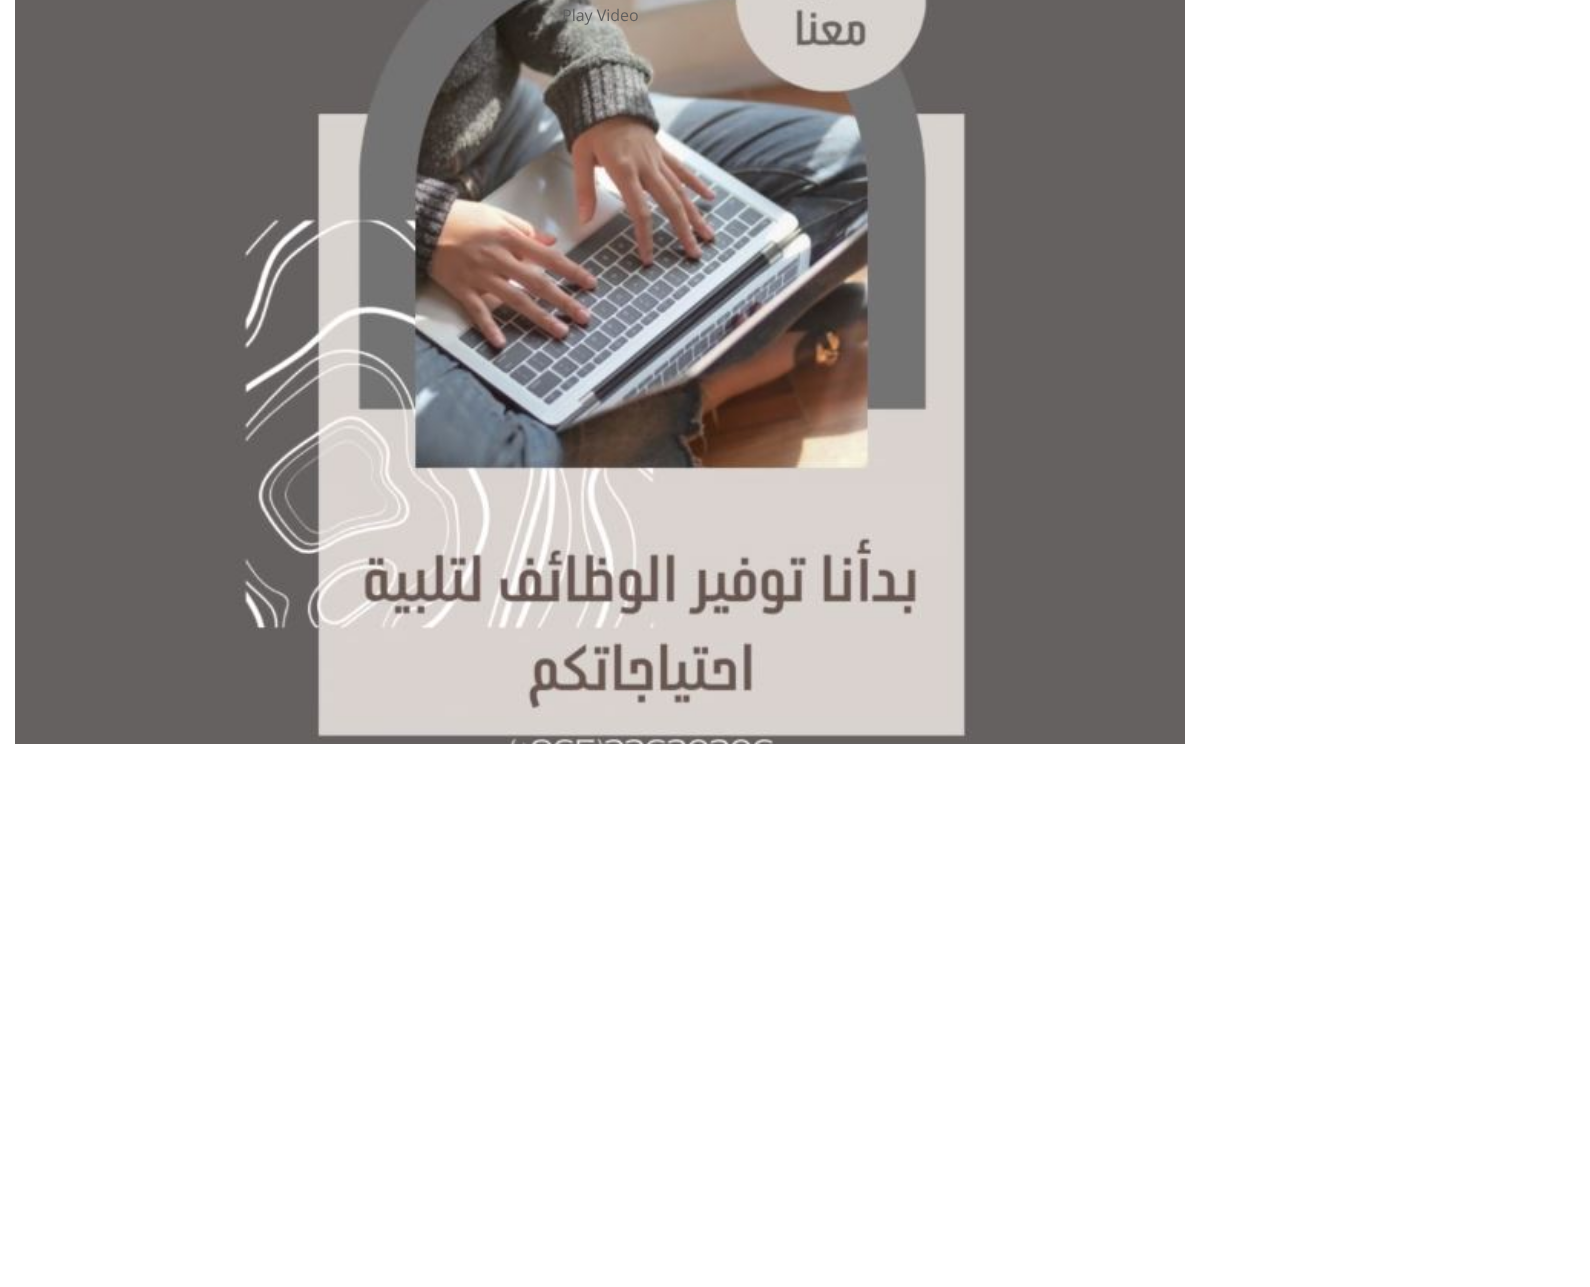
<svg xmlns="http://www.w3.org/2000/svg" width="1590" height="1287">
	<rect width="100%" height="100%" fill="#FFFFFF" />
	<image x="15" y="0" width="1170" height="744" href="assets/img1.png" />
	<text x="562" y="21" font-family="Open Sans" font-size="16" fill="#5F5F5F">Play Video</text>
</svg>
